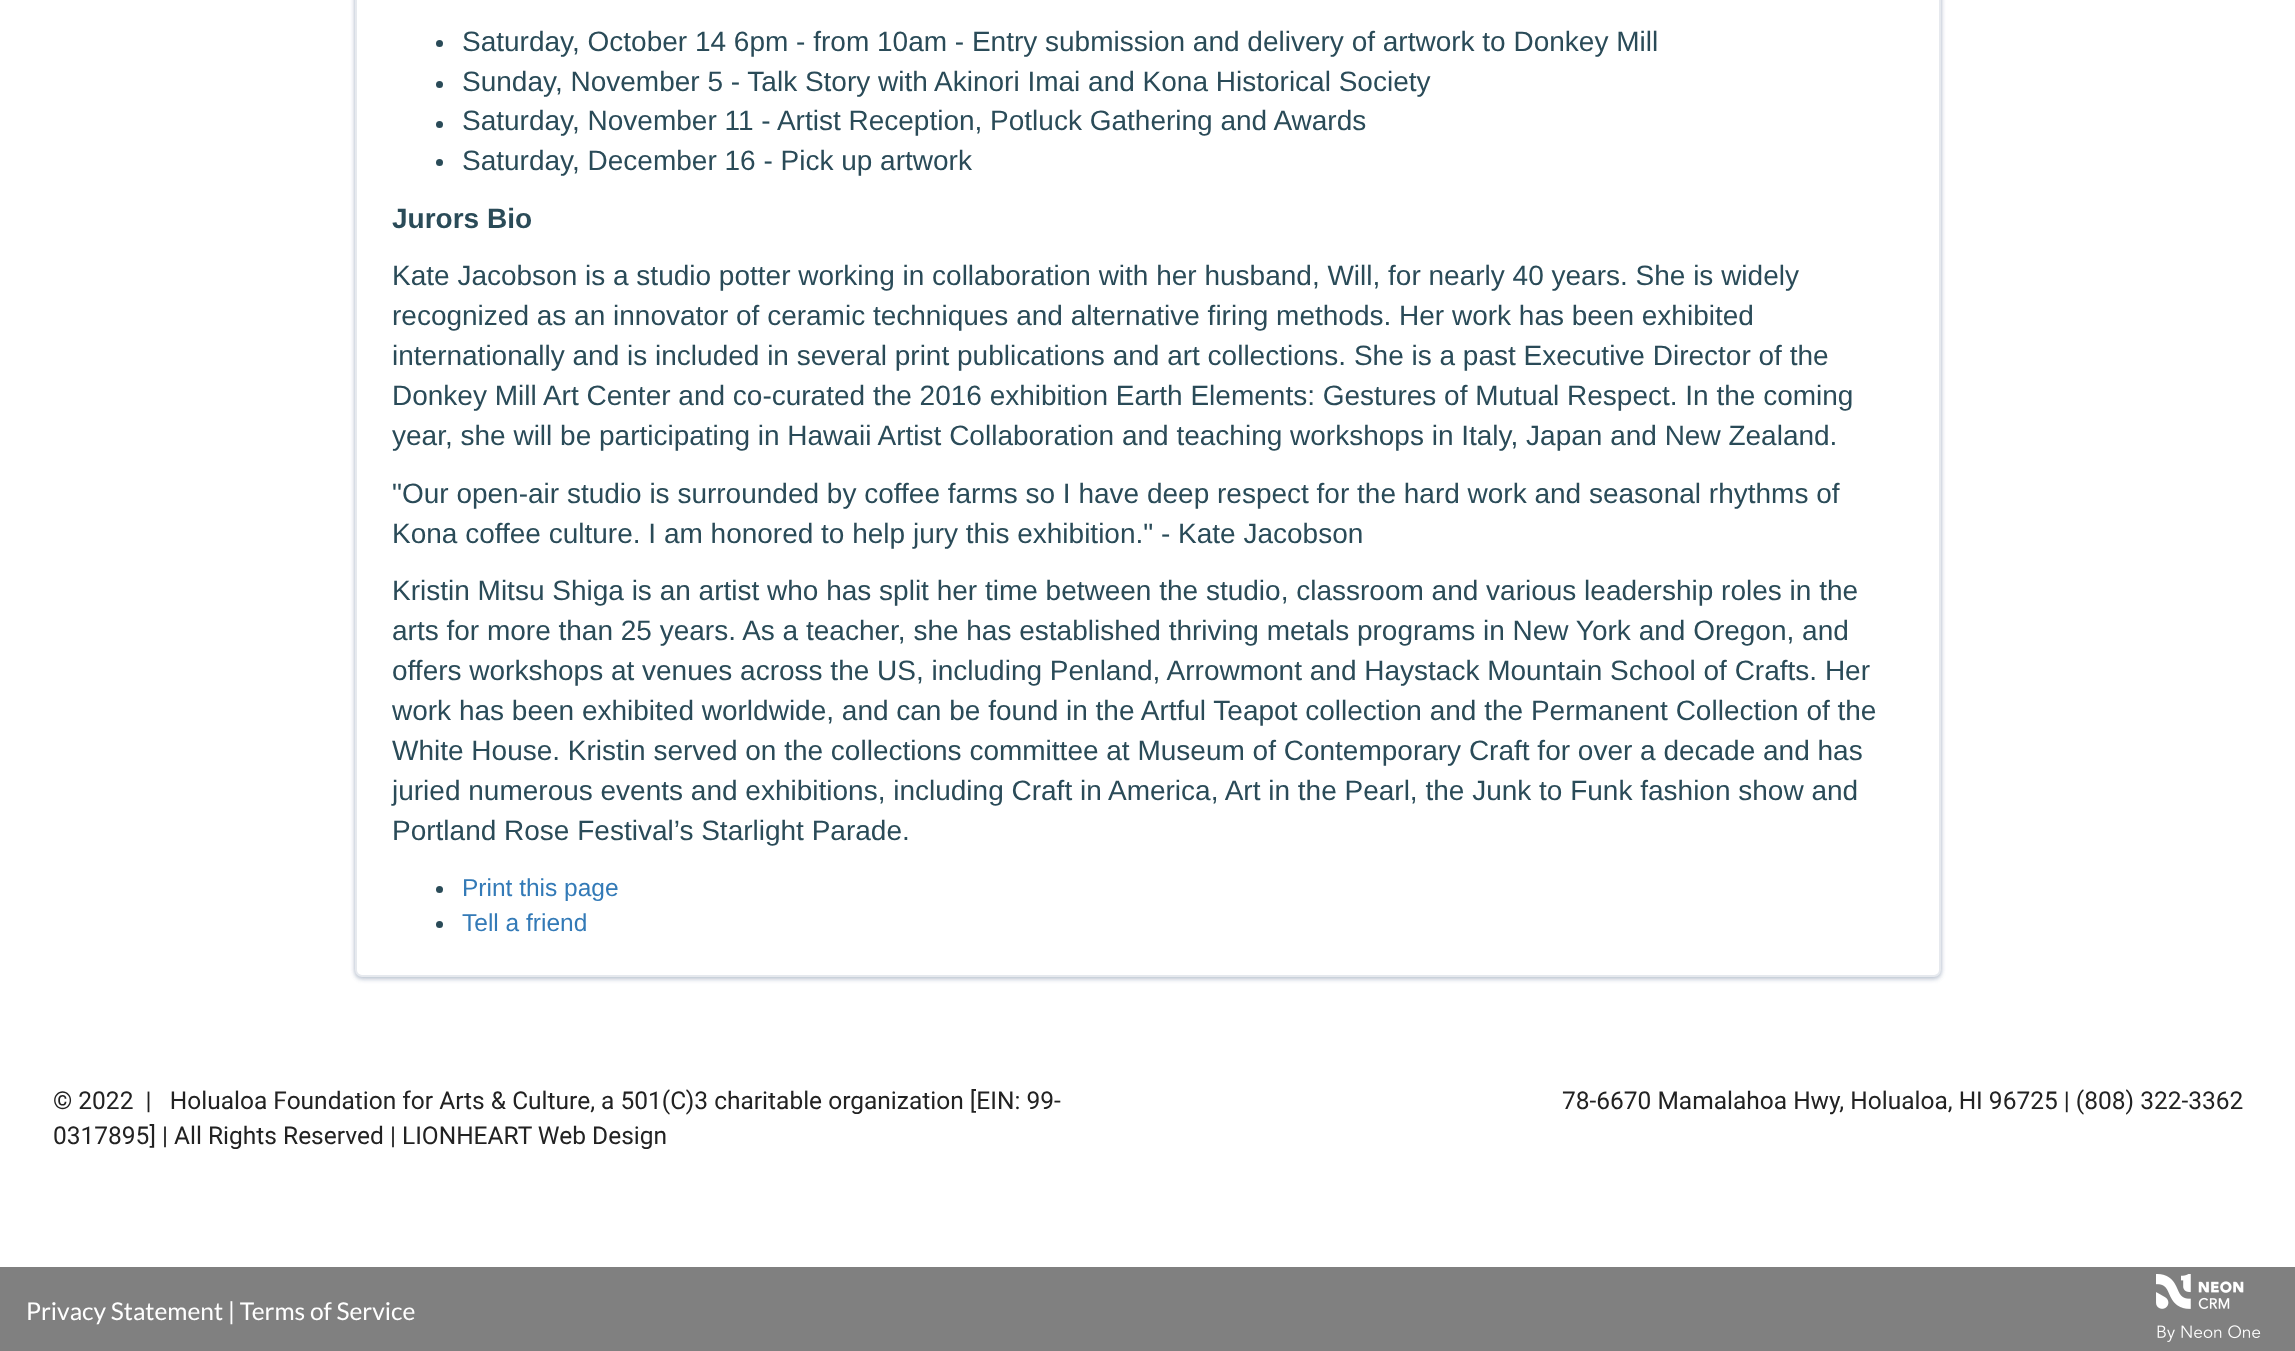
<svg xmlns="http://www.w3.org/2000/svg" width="2295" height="1351">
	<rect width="100%" height="100%" fill="#FFFFFF" />
	<rect x="355" y="-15" width="1586" height="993" rx="7" fill="#2F4975" fill-opacity="0.2" filter="blur(2.5px)" />
	<rect x="355" y="-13" width="1586" height="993" rx="7" fill="#2F4975" fill-opacity="0.12" filter="blur(2px)" />
	<rect x="355" y="-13" width="1586" height="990" rx="7" fill="#2F4975" fill-opacity="0.14" filter="blur(2px)" />
	<rect x="356" y="-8" width="1584" height="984" rx="6" fill="#FFFFFF" stroke="#E6E9EE" stroke-width="2" />
	<circle cx="439.5" cy="43.5" r="3.5" fill="#2A4B58" />
	<text x="462" y="51" font-family="Liberation Sans" font-size="28" fill="#2A4B58">Saturday, October 14 6pm - from 10am - Entry submission and delivery of artwork to Donkey Mill</text>
	<circle cx="439.5" cy="84.5" r="3.5" fill="#2A4B58" />
	<text x="462" y="91" font-family="Liberation Sans" font-size="28" fill="#2A4B58">Sunday, November 5 - Talk Story with Akinori Imai and Kona Historical Society</text>
	<circle cx="439.5" cy="124.5" r="3.5" fill="#2A4B58" />
	<text x="462" y="130" font-family="Liberation Sans" font-size="28" fill="#2A4B58">Saturday, November 11 - Artist Reception, Potluck Gathering and Awards</text>
	<circle cx="439.5" cy="162.5" r="3.5" fill="#2A4B58" />
	<text x="462" y="170" font-family="Liberation Sans" font-size="28" fill="#2A4B58">Saturday, December 16 - Pick up artwork</text>
	<text x="392" y="228" font-family="Liberation Sans" font-size="28" font-weight="700" fill="#2A4B58">Jurors Bio</text>
	<g font-family="Liberation Sans" font-size="28" fill="#2A4B58">
		<text x="392" y="285">Kate Jacobson is a studio potter working in collaboration with her husband, Will, for nearly 40 years. She is widely</text>
		<text x="392" y="325">recognized as an innovator of ceramic techniques and alternative firing methods. Her work has been exhibited</text>
		<text x="392" y="365">internationally and is included in several print publications and art collections. She is a past Executive Director of the</text>
		<text x="392" y="405">Donkey Mill Art Center and co-curated the 2016 exhibition Earth Elements: Gestures of Mutual Respect. In the coming</text>
		<text x="392" y="445">year, she will be participating in Hawaii Artist Collaboration and teaching workshops in Italy, Japan and New Zealand.</text>
		<text x="392" y="503">"Our open-air studio is surrounded by coffee farms so I have deep respect for the hard work and seasonal rhythms of</text>
		<text x="392" y="543">Kona coffee culture. I am honored to help jury this exhibition." - Kate Jacobson</text>
		<text x="392" y="600">Kristin Mitsu Shiga is an artist who has split her time between the studio, classroom and various leadership roles in the</text>
		<text x="392" y="640">arts for more than 25 years. As a teacher, she has established thriving metals programs in New York and Oregon, and</text>
		<text x="392" y="680">offers workshops at venues across the US, including Penland, Arrowmont and Haystack Mountain School of Crafts. Her</text>
		<text x="392" y="720">work has been exhibited worldwide, and can be found in the Artful Teapot collection and the Permanent Collection of the</text>
		<text x="392" y="760">White House. Kristin served on the collections committee at Museum of Contemporary Craft for over a decade and has</text>
		<text x="392" y="800">juried numerous events and exhibitions, including Craft in America, Art in the Pearl, the Junk to Funk fashion show and</text>
		<text x="392" y="840">Portland Rose Festival’s Starlight Parade.</text>
	</g>
	<circle cx="439.5" cy="889.5" r="3.5" fill="#2A4B58" />
	<text x="462" y="896" font-family="Liberation Sans" font-size="24.5" fill="#337AB7">Print this page</text>
	<circle cx="439.5" cy="924.5" r="3.5" fill="#2A4B58" />
	<text x="462" y="931" font-family="Liberation Sans" font-size="24.5" fill="#337AB7">Tell a friend</text>
	<g font-family="Roboto" font-size="24.5" fill="#222222">
		<text x="53" y="1109" xml:space="preserve">© 2022  |   Holualoa Foundation for Arts &amp; Culture, a 501(C)3 charitable organization [EIN: 99-</text>
		<text x="53" y="1144">0317895] | All Rights Reserved | LIONHEART Web Design</text>
		<text x="1562" y="1109">78-6670 Mamalahoa Hwy, Holualoa, HI 96725 | (808) 322-3362</text>
	</g>
	<rect x="0" y="1267" width="2295" height="84" fill="#808080" />
	<text x="26" y="1320" font-family="Lato" font-size="24.5" fill="#FFFFFF">Privacy Statement | Terms of Service</text>
	<image x="2156" y="1274" width="88" height="35" href="assets/img1.png" />
	<image x="2157" y="1325" width="104" height="17" href="assets/img2.png" />
</svg>
